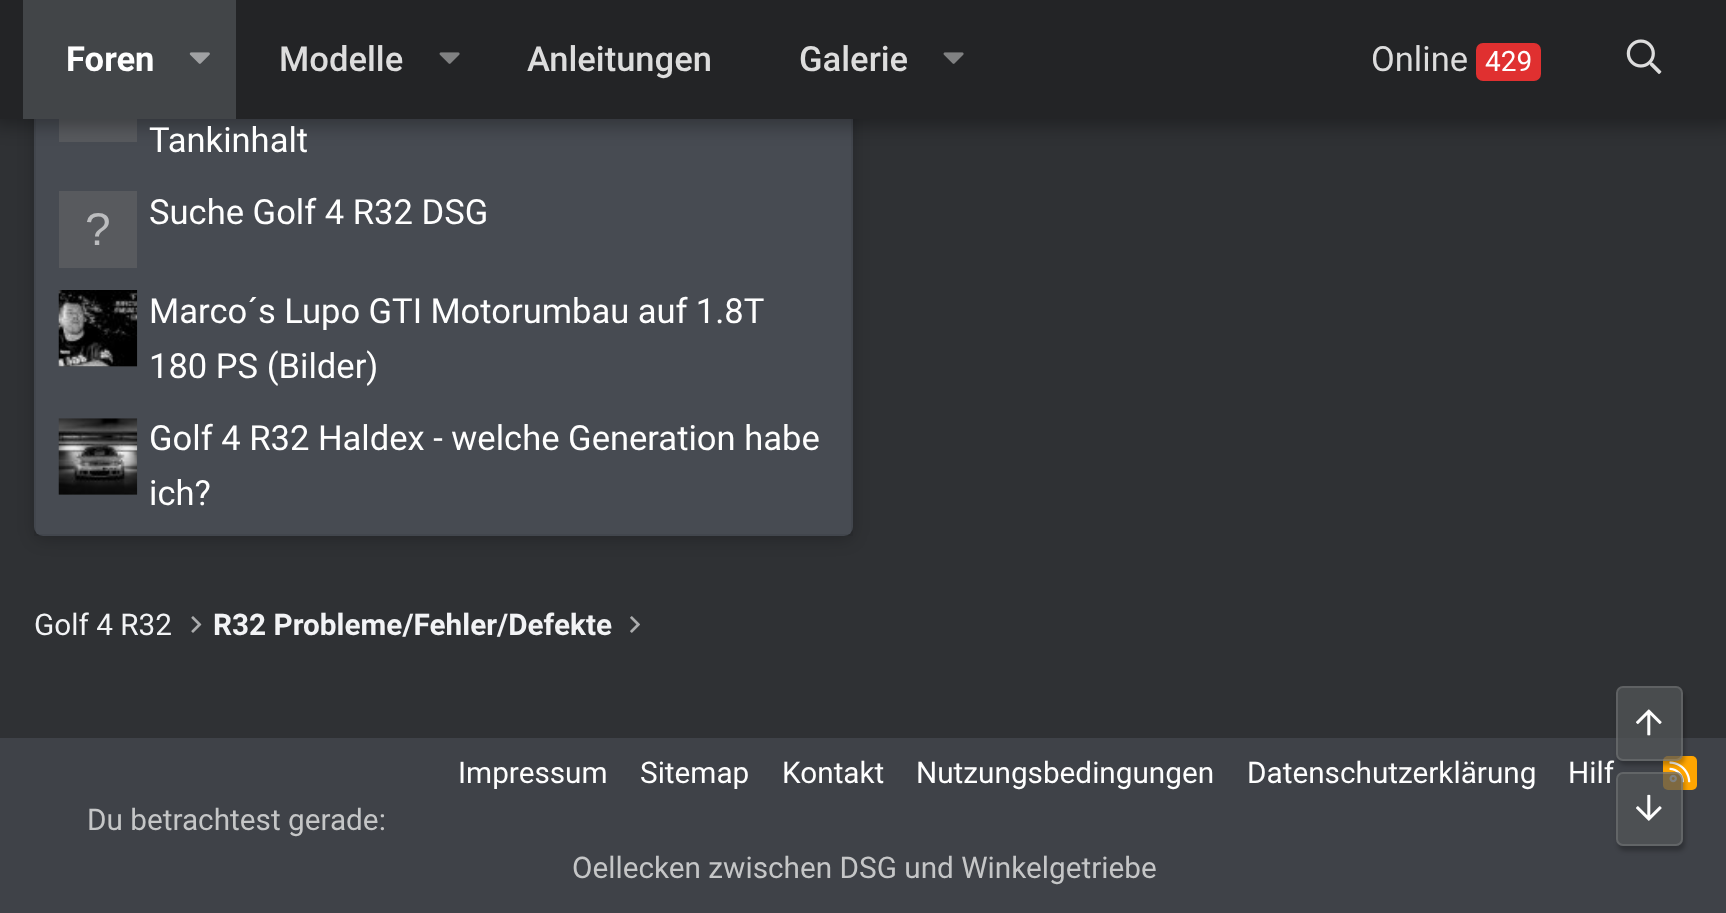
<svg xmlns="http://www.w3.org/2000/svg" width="1726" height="913">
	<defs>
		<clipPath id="clip1"><path d="M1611 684H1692V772H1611ZM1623 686H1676C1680 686 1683 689 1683 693V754C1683 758 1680 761 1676 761H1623C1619 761 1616 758 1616 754V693C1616 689 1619 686 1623 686Z" clip-rule="evenodd" /></clipPath>
		<clipPath id="clip2"><path d="M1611 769H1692V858H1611ZM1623 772H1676C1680 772 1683 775 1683 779V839C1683 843 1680 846 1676 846H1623C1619 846 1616 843 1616 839V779C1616 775 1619 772 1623 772Z" clip-rule="evenodd" /></clipPath>
	</defs>
	<rect width="100%" height="100%" fill="#2F3134" />
	<rect x="34" y="-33" width="819" height="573" rx="9" fill="#000000" fill-opacity="0.2" filter="blur(8px)" />
	<rect x="34" y="-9" width="819" height="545" rx="9" fill="#474B52" />
	<rect x="35" y="-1" width="817" height="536" fill="none" stroke="#000000" stroke-opacity="0.06" stroke-width="2" />
	<rect x="59" y="119" width="78" height="23" fill="#585A5E" />
	<rect x="-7" y="-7" width="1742" height="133" fill="#000000" fill-opacity="0.3" filter="blur(9px)" />
	<rect x="0" y="0" width="1726" height="119" fill="#232426" />
	<rect x="23" y="0" width="213" height="119" fill="#424548" />
	<text x="66" y="71" font-family="Roboto" font-size="34.6" font-weight="700" fill="#FEFEFE">Foren</text>
	<image x="189" y="52" width="21" height="12" href="assets/img1.png" />
	<text x="279" y="71" font-family="Roboto" font-size="34.6" font-weight="500" fill="#DDDDDD">Modelle</text>
	<image x="439" y="52" width="21" height="12" href="assets/img2.png" />
	<g font-family="Roboto" font-size="34.6" font-weight="500" fill="#DDDDDD">
		<text x="527" y="71">Anleitungen</text>
		<text x="799" y="71">Galerie</text>
	</g>
	<image x="943" y="52" width="21" height="12" href="assets/img2.png" />
	<text x="1371" y="71" font-family="Roboto" font-size="34.6" fill="#DDDDDD">Online</text>
	<rect x="1476" y="43" width="65" height="38" rx="7" fill="#E03030" />
	<text x="1485" y="71" font-family="Roboto" font-size="28" fill="#FEFEFE">429</text>
	<image x="1626" y="39" width="36" height="35" href="assets/img3.png" />
	<text x="149" y="152" font-family="Roboto" font-size="34.6" fill="#FEFEFE">Tankinhalt</text>
	<rect x="59" y="191" width="78" height="77" fill="#585A5E" />
	<text x="85" y="245" font-family="Liberation Sans" font-size="46" fill="#BCBDBF">?</text>
	<text x="149" y="224" font-family="Roboto" font-size="34.6" fill="#FEFEFE">Suche Golf 4 R32 DSG</text>
	<rect x="59" y="366" width="78" height="1" fill="#424548" />
	<image x="58" y="290" width="80" height="77" href="assets/img4.png" />
	<g font-family="Roboto" font-size="34.6" fill="#FEFEFE">
		<text x="149" y="323" word-spacing="-0.25">Marco´s Lupo GTI Motorumbau auf 1.8T</text>
		<text x="149" y="378">180 PS (Bilder)</text>
	</g>
	<rect x="59" y="494" width="78" height="1" fill="#424548" />
	<image x="58" y="418" width="80" height="77" href="assets/img5.png" />
	<g font-family="Roboto" font-size="34.6" fill="#FEFEFE">
		<text x="149" y="450">Golf 4 R32 Haldex - welche Generation habe</text>
		<text x="149" y="505">ich?</text>
	</g>
	<text x="34" y="635" font-family="Roboto" font-size="29.75" fill="#F2F3F5">Golf 4 R32</text>
	<image x="191" y="616" width="11" height="17" href="assets/img6.png" />
	<text x="213" y="635" font-family="Roboto" font-size="29.75" font-weight="700" fill="#F2F3F5">R32 Probleme/Fehler/Defekte</text>
	<image x="630" y="616" width="10" height="17" href="assets/img7.png" />
	<rect x="0" y="738" width="1726" height="175" fill="#3F4248" />
	<g font-family="Roboto" font-size="29.75" fill="#FEFEFE">
		<text x="458" y="783">Impressum</text>
		<text x="640" y="783">Sitemap</text>
		<text x="782" y="783">Kontakt</text>
		<text x="916" y="783">Nutzungsbedingungen</text>
		<text x="1247" y="783">Datenschutzerklärung</text>
		<text x="1568" y="783">Hilf</text>
	</g>
	<rect x="1663" y="756" width="34" height="34" rx="5" fill="#FFA500" />
	<image x="1669" y="761" width="22" height="22" href="assets/img8.png" />
	<g font-family="Roboto" font-size="29.75" fill="#C5C6C7">
		<text x="87" y="830">Du betrachtest gerade:</text>
		<text x="572" y="878">Oellecken zwischen DSG und Winkelgetriebe</text>
	</g>
	<g clip-path="url(#clip1)">
		<rect x="1618" y="691" width="67" height="74" rx="7" fill="#000000" fill-opacity="0.25" filter="blur(2px)" />
	</g>
	<rect x="1616" y="686" width="67" height="75" rx="7" fill="#535557" fill-opacity="0.75" />
	<rect x="1617" y="687" width="65" height="73" rx="6" fill="none" stroke="#FFFFFF" stroke-opacity="0.12" stroke-width="2" />
	<image x="1636" y="709" width="26" height="27" href="assets/img9.png" />
	<g clip-path="url(#clip2)">
		<rect x="1618" y="776" width="67" height="75" rx="7" fill="#000000" fill-opacity="0.25" filter="blur(2px)" />
	</g>
	<rect x="1616" y="772" width="67" height="74" rx="7" fill="#535557" fill-opacity="0.75" />
	<rect x="1617" y="773" width="65" height="72" rx="6" fill="none" stroke="#FFFFFF" stroke-opacity="0.12" stroke-width="2" />
	<image x="1636" y="794" width="26" height="27" href="assets/img10.png" />
</svg>
